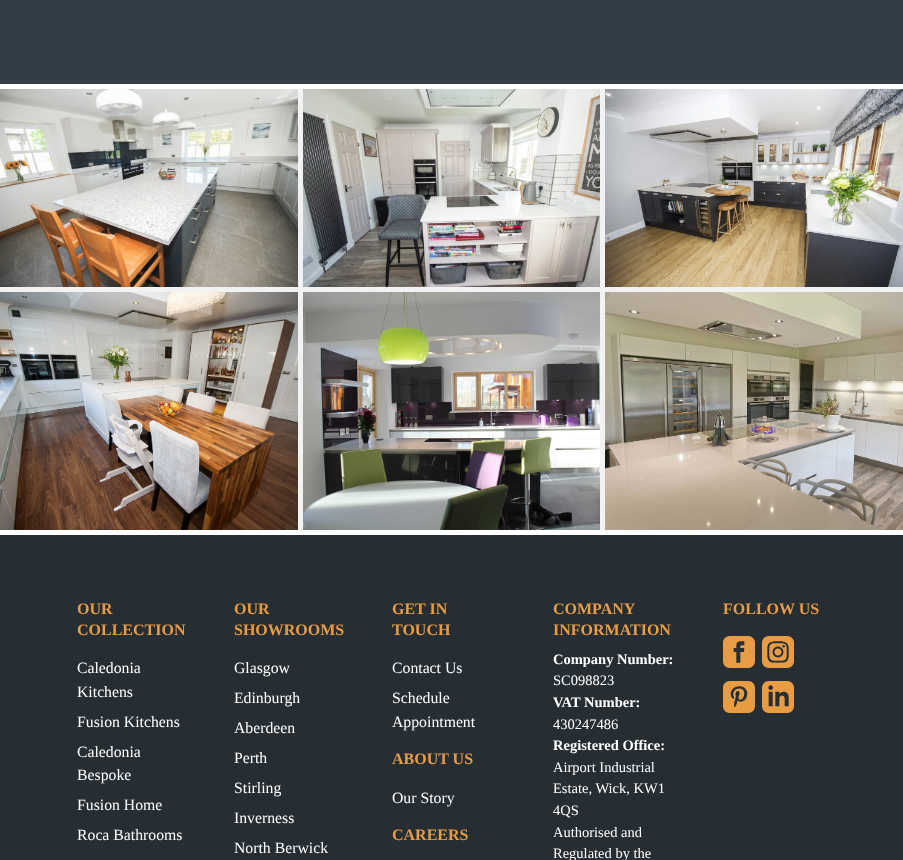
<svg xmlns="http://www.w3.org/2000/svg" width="903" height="860">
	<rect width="100%" height="100%" fill="#F2F2F2" />
	<rect x="0" y="0" width="903" height="84" fill="#333D46" />
	<rect x="0" y="84" width="903" height="5" fill="#FFFFFF" />
	<rect x="0" y="530" width="903" height="5" fill="#FFFFFF" />
	<image x="0" y="89" width="298" height="198" href="assets/img1.png" />
	<image x="303" y="89" width="297" height="198" href="assets/img2.png" />
	<image x="605" y="89" width="298" height="198" href="assets/img3.png" />
	<image x="0" y="292" width="298" height="238" href="assets/img4.png" />
	<image x="303" y="292" width="297" height="238" href="assets/img5.png" />
	<image x="605" y="292" width="298" height="238" href="assets/img6.png" />
	<rect x="0" y="535" width="903" height="325" fill="#262E34" />
	<g font-family="Liberation Serif" font-size="16" font-weight="700" fill="#E89D45">
		<text x="77" y="614">OUR</text>
		<text x="77" y="635">COLLECTION</text>
	</g>
	<g font-family="Liberation Serif" font-size="15.75" fill="#FFFFFF">
		<text x="77" y="673">Caledonia</text>
		<text x="77" y="697">Kitchens</text>
		<text x="77" y="727">Fusion Kitchens</text>
		<text x="77" y="757">Caledonia</text>
		<text x="77" y="780">Bespoke</text>
		<text x="77" y="810">Fusion Home</text>
		<text x="77" y="840">Roca Bathrooms</text>
	</g>
	<g font-family="Liberation Serif" font-size="16" font-weight="700" fill="#E89D45">
		<text x="234" y="614">OUR</text>
		<text x="234" y="635">SHOWROOMS</text>
	</g>
	<g font-family="Liberation Serif" font-size="15.75" fill="#FFFFFF">
		<text x="234" y="673">Glasgow</text>
		<text x="234" y="703">Edinburgh</text>
		<text x="234" y="733">Aberdeen</text>
		<text x="234" y="763">Perth</text>
		<text x="234" y="793">Stirling</text>
		<text x="234" y="823">Inverness</text>
		<text x="234" y="853">North Berwick</text>
	</g>
	<g font-family="Liberation Serif" font-size="16" font-weight="700" fill="#E89D45">
		<text x="392" y="614">GET IN</text>
		<text x="392" y="635">TOUCH</text>
	</g>
	<g font-family="Liberation Serif" font-size="15.75" fill="#FFFFFF">
		<text x="392" y="673">Contact Us</text>
		<text x="392" y="703">Schedule</text>
		<text x="392" y="727">Appointment</text>
	</g>
	<text x="392" y="764" font-family="Liberation Serif" font-size="16" font-weight="700" fill="#E89D45">ABOUT US</text>
	<text x="392" y="803" font-family="Liberation Serif" font-size="15.75" fill="#FFFFFF">Our Story</text>
	<g font-family="Liberation Serif" font-size="16" font-weight="700" fill="#E89D45">
		<text x="392" y="840">CAREERS</text>
		<text x="553" y="614">COMPANY</text>
		<text x="553" y="635">INFORMATION</text>
	</g>
	<text x="553" y="664" font-family="Liberation Serif" font-size="14.5" font-weight="700" fill="#FFFFFF">Company Number:</text>
	<text x="553" y="685" font-family="Liberation Serif" font-size="14.5" fill="#FFFFFF">SC098823</text>
	<text x="553" y="707" font-family="Liberation Serif" font-size="14.5" font-weight="700" fill="#FFFFFF">VAT Number:</text>
	<text x="553" y="729" font-family="Liberation Serif" font-size="14.5" fill="#FFFFFF">430247486</text>
	<text x="553" y="750" font-family="Liberation Serif" font-size="14.5" font-weight="700" fill="#FFFFFF">Registered Office:</text>
	<g font-family="Liberation Serif" font-size="14.5" fill="#FFFFFF">
		<text x="553" y="772">Airport Industrial</text>
		<text x="553" y="793">Estate, Wick, KW1</text>
		<text x="553" y="815">4QS</text>
		<text x="553" y="837">Authorised and</text>
		<text x="553" y="858">Regulated by the</text>
	</g>
	<text x="723" y="614" font-family="Liberation Serif" font-size="16" font-weight="700" fill="#E89D45">FOLLOW US</text>
	<image x="723" y="636" width="32" height="32" href="assets/img7.png" />
	<image x="762" y="636" width="32" height="32" href="assets/img8.png" />
	<image x="723" y="681" width="32" height="32" href="assets/img9.png" />
	<image x="762" y="681" width="32" height="32" href="assets/img10.png" />
</svg>
